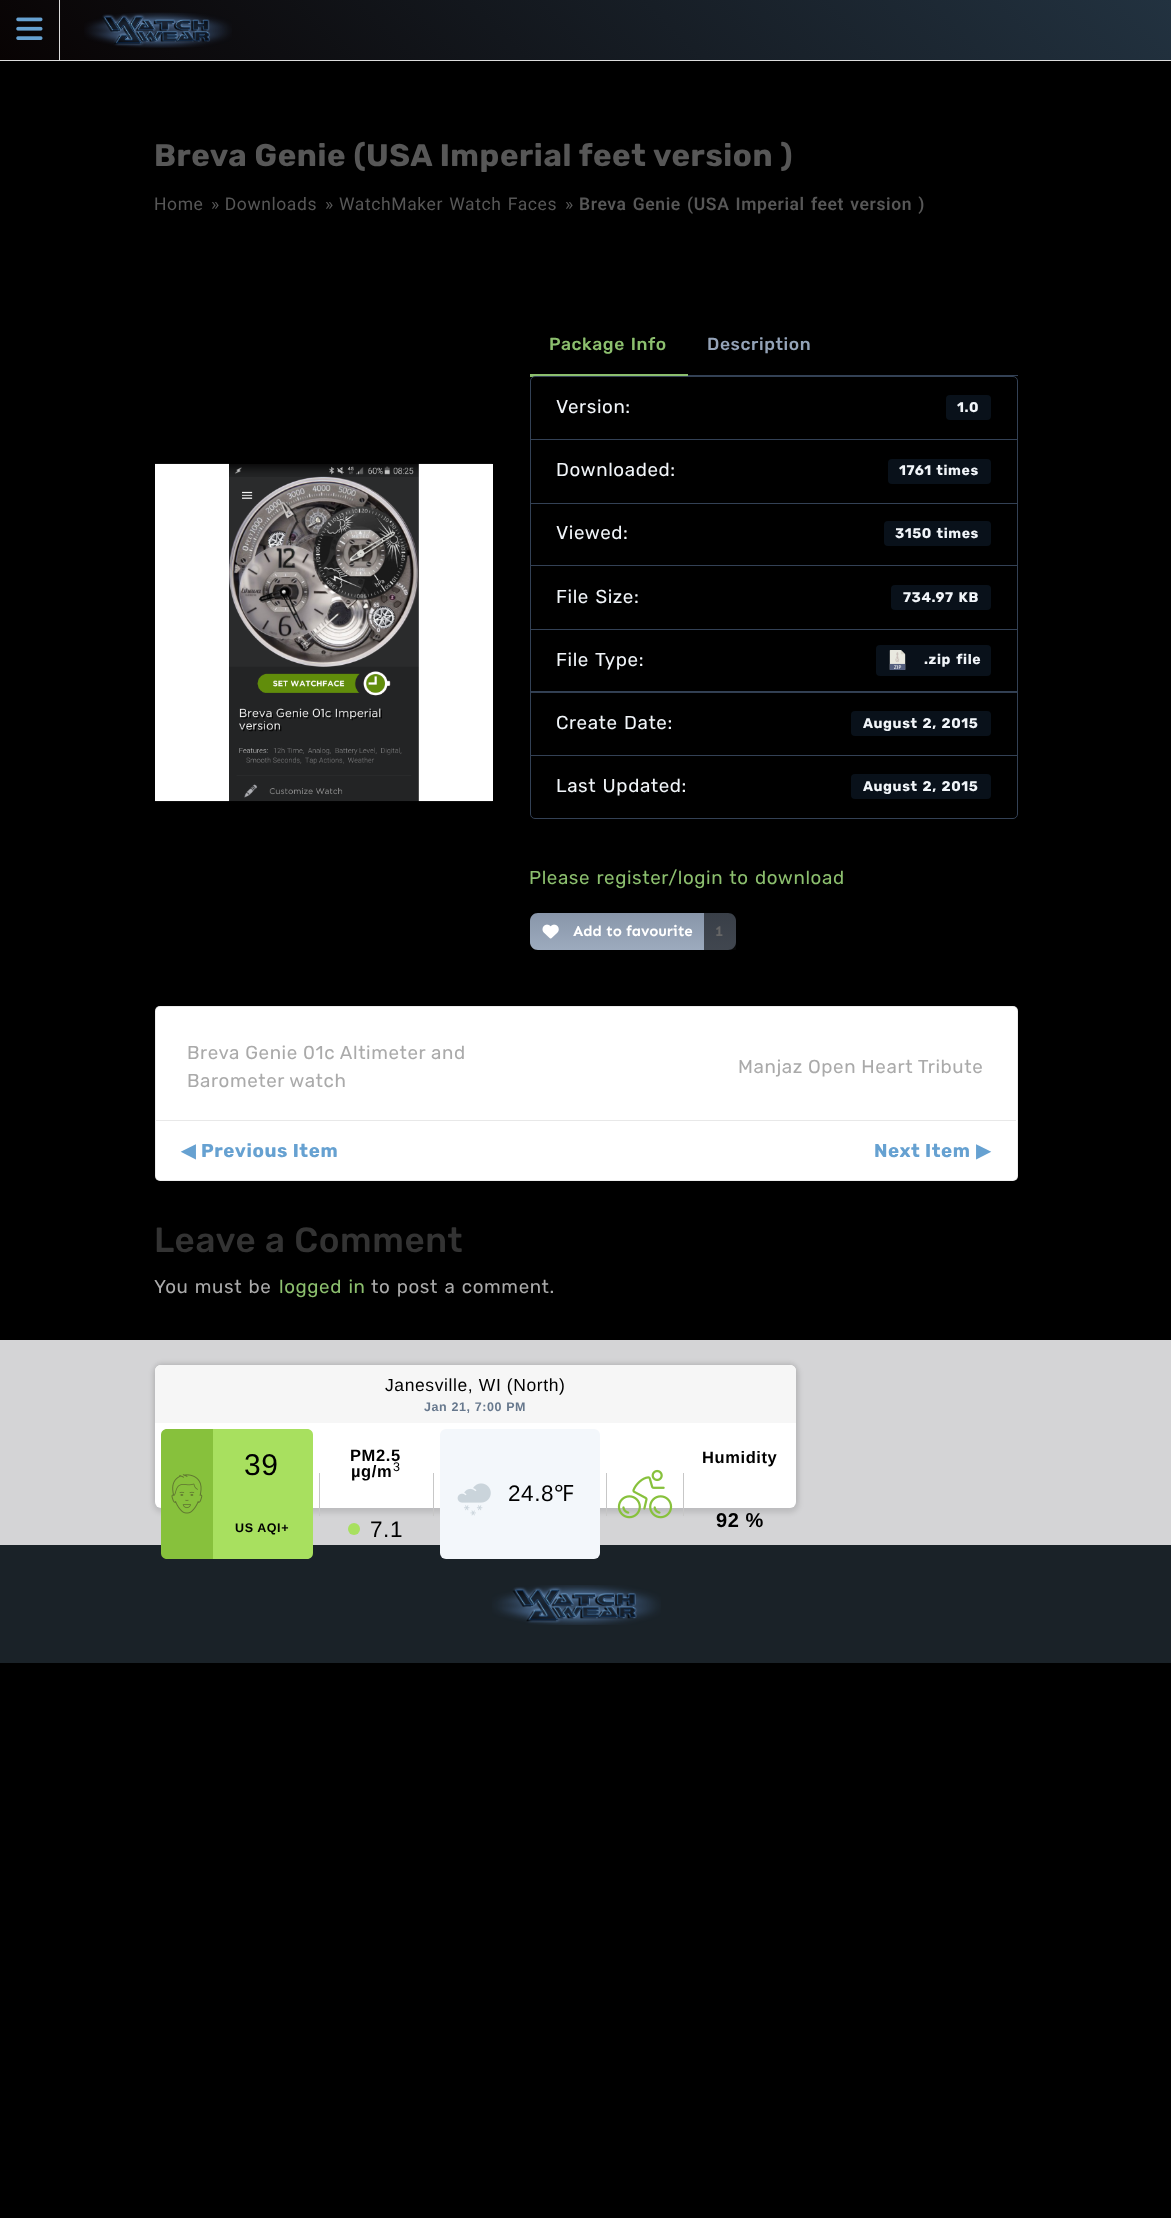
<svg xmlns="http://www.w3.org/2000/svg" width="1171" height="2218">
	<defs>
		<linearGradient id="g1" gradientUnits="userSpaceOnUse" x1="278" y1="338" x2="893" y2="-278"><stop offset="0" stop-color="#080303" /><stop offset="1" stop-color="#223240" /></linearGradient>
		<linearGradient id="g2" gradientUnits="userSpaceOnUse" x1="617" y1="913" x2="617" y2="950"><stop offset="0" stop-color="#000000" stop-opacity="0.08" /><stop offset="1" stop-color="#FFFFFF" stop-opacity="0.08" /></linearGradient>
		<linearGradient id="g3" gradientUnits="userSpaceOnUse" x1="719" y1="913" x2="719" y2="950"><stop offset="0" stop-color="#000000" stop-opacity="0.03" /><stop offset="1" stop-color="#FFFFFF" stop-opacity="0.03" /></linearGradient>
	</defs>
	<rect width="100%" height="100%" fill="#000000" />
	<rect x="0" y="0" width="1171" height="60" fill="url(#g1)" />
	<rect x="0" y="60" width="1171" height="1" fill="#DDDDDD" />
	<rect x="59" y="0" width="1" height="60" fill="#DDDDDD" />
	<image x="16" y="17" width="27" height="23" href="assets/img1.png" />
	<image x="84" y="12" width="148" height="36" href="assets/img2.png" />
	<text x="154" y="166" font-family="Rubik" font-size="31.25" font-weight="700" letter-spacing="0.6" fill="#575757">Breva Genie (USA Imperial feet version )</text>
	<g font-family="Roboto" font-size="17.5" letter-spacing="0.6" fill="#575757">
		<text x="154" y="210">Home</text>
		<text x="211" y="210">» Downloads</text>
		<text x="325" y="210">»</text>
		<text x="339" y="210" word-spacing="1.25">WatchMaker Watch Faces</text>
		<text x="565" y="210">»</text>
	</g>
	<text x="579" y="210" word-spacing="1.25" font-family="Roboto" font-size="17.5" font-weight="600" letter-spacing="0.6" fill="#575757">Breva Genie (USA Imperial feet version )</text>
	<rect x="492" y="464" width="1" height="337" fill="#FFFFFF" />
	<image x="155" y="463" width="338" height="339" href="assets/img3.png" />
	<rect x="688" y="375" width="330" height="1" fill="#334155" />
	<text x="549" y="350" word-spacing="1.25" font-family="Rubik" font-size="17.5" font-weight="500" letter-spacing="0.6" fill="#8CBF6E">Package Info</text>
	<rect x="530" y="374" width="158" height="3" fill="#8CBF6E" />
	<text x="707" y="350" font-family="Rubik" font-size="17.5" font-weight="500" letter-spacing="0.6" fill="#94A3B8">Description</text>
	<rect x="530" y="376" width="158" height="1" fill="#000000" fill-opacity="0.04" />
	<path d="M535 376.5H1013C1015.5 376.5 1017.5 378.5 1017.5 381V439.5H530.5V381C530.5 378.5 532.5 376.5 535 376.5Z" fill="none" stroke="#334155" />
	<text x="556" y="413" font-family="Rubik" font-size="18.75" letter-spacing="0.6" fill="#F1F5F9">Version:</text>
	<rect x="946" y="395" width="45" height="25" rx="4" fill="#09111A" />
	<text x="957" y="412" font-family="Rubik" font-size="14" font-weight="700" letter-spacing="0.6" fill="#F1F5F9">1.0</text>
	<rect x="530.5" y="439.5" width="487" height="64" fill="none" stroke="#334155" />
	<text x="556" y="476" font-family="Rubik" font-size="18.75" letter-spacing="0.6" fill="#F1F5F9">Downloaded:</text>
	<rect x="888" y="459" width="103" height="25" rx="4" fill="#09111A" />
	<text x="899" y="475" word-spacing="1.25" font-family="Rubik" font-size="14" font-weight="700" letter-spacing="0.6" fill="#F1F5F9">1761 times</text>
	<rect x="530.5" y="503.5" width="487" height="62" fill="none" stroke="#334155" />
	<text x="556" y="539" font-family="Rubik" font-size="18.75" letter-spacing="0.6" fill="#F1F5F9">Viewed:</text>
	<rect x="884" y="521" width="107" height="25" rx="4" fill="#09111A" />
	<text x="895" y="538" word-spacing="1.25" font-family="Rubik" font-size="14" font-weight="700" letter-spacing="0.6" fill="#F1F5F9">3150 times</text>
	<rect x="530.5" y="565.5" width="487" height="64" fill="none" stroke="#334155" />
	<text x="556" y="603" word-spacing="1.25" font-family="Rubik" font-size="18.75" letter-spacing="0.6" fill="#F1F5F9">File Size:</text>
	<rect x="891" y="585" width="100" height="25" rx="4" fill="#09111A" />
	<text x="903" y="602" word-spacing="1.25" font-family="Rubik" font-size="14" font-weight="700" letter-spacing="0.6" fill="#F1F5F9">734.97 KB</text>
	<rect x="530.5" y="629.5" width="487" height="63" fill="none" stroke="#334155" />
	<text x="556" y="666" word-spacing="1.25" font-family="Rubik" font-size="18.75" letter-spacing="0.6" fill="#F1F5F9">File Type:</text>
	<rect x="876" y="645" width="115" height="31" rx="4" fill="#09111A" />
	<image x="889" y="650" width="17" height="20" href="assets/img4.png" />
	<text x="924" y="664" word-spacing="2" font-family="Rubik" font-size="14" font-weight="700" letter-spacing="0.6" fill="#F1F5F9">.zip file</text>
	<rect x="531" y="692" width="486" height="1" fill="#000000" fill-opacity="0.04" />
	<rect x="530.5" y="691.5" width="487" height="64" fill="none" stroke="#334155" />
	<text x="556" y="729" word-spacing="1.25" font-family="Rubik" font-size="18.75" letter-spacing="0.6" fill="#F1F5F9">Create Date:</text>
	<rect x="851" y="711" width="140" height="25" rx="4" fill="#09111A" />
	<text x="863" y="728" word-spacing="1.25" font-family="Rubik" font-size="14" font-weight="700" letter-spacing="0.6" fill="#F1F5F9">August 2, 2015</text>
	<path d="M530.5 755.5H1017.5V814C1017.5 816.5 1015.5 818.5 1013 818.5H535C532.5 818.5 530.5 816.5 530.5 814Z" fill="none" stroke="#334155" />
	<text x="556" y="792" word-spacing="1.25" font-family="Rubik" font-size="18.75" letter-spacing="0.6" fill="#F1F5F9">Last Updated:</text>
	<rect x="851" y="774" width="140" height="25" rx="4" fill="#09111A" />
	<text x="863" y="791" word-spacing="1.25" font-family="Rubik" font-size="14" font-weight="700" letter-spacing="0.6" fill="#F1F5F9">August 2, 2015</text>
	<text x="529" y="884" word-spacing="1.25" font-family="Rubik" font-size="18.75" letter-spacing="0.6" fill="#8CBF6E">Please register/login to download</text>
	<path d="M538 913H704V950H538C533.5 950 530 946.5 530 942V921C530 916.5 533.5 913 538 913Z" fill="#94A3B8" />
	<path d="M538 913H704V950H538C533.5 950 530 946.5 530 942V921C530 916.5 533.5 913 538 913Z" fill="url(#g2)" />
	<image x="542" y="924" width="17" height="15" href="assets/img5.png" />
	<text x="573" y="936" font-family="Sen" font-size="15" font-weight="700" letter-spacing="-0.1" fill="#FFFFFF">Add to favourite</text>
	<path d="M703 913H728C732.5 913 736 916.5 736 921V942C736 946.5 732.5 950 728 950H703Z" fill="#94A3B8" fill-opacity="0.4" />
	<rect x="703" y="913" width="33" height="37" fill="url(#g3)" />
	<text x="715" y="936" font-family="Sen" font-size="15" font-weight="700" letter-spacing="-0.1" fill="#666666">1</text>
	<rect x="155" y="1006" width="863" height="175" rx="5" fill="#FFFFFF" />
	<rect x="155.5" y="1006.5" width="862" height="174" rx="4.5" fill="none" stroke="#000000" stroke-opacity="0.07" />
	<g font-family="Rubik" font-size="18.75" letter-spacing="0.6" fill="#AAAAAA">
		<text x="187" y="1059">Breva Genie 01c Altimeter and</text>
		<text x="187" y="1087">Barometer watch</text>
		<text x="738" y="1073">Manjaz Open Heart Tribute</text>
	</g>
	<rect x="156" y="1120" width="860" height="1" fill="#E8E8E8" />
	<text x="181" y="1157" font-family="DejaVu Sans" font-size="18.75" font-weight="700" letter-spacing="0.6" fill="#66A1D1">◀</text>
	<g font-family="Rubik" font-size="18.75" font-weight="700" letter-spacing="0.6" fill="#66A1D1">
		<text x="201" y="1157">Previous Item</text>
		<text x="874" y="1157">Next Item</text>
	</g>
	<text x="976" y="1157" font-family="DejaVu Sans" font-size="18.75" font-weight="700" letter-spacing="0.6" fill="#66A1D1">▶</text>
	<text x="154" y="1252" font-family="Rubik" font-size="35" font-weight="500" letter-spacing="0.6" fill="#333333">Leave a Comment</text>
	<text x="154" y="1293" word-spacing="1.25" font-family="Rubik" font-size="18.75" letter-spacing="0.6" fill="#AAAAAA">You must be</text>
	<text x="279" y="1293" word-spacing="1.25" font-family="Rubik" font-size="18.75" letter-spacing="0.6" fill="#8CBF6E">logged in</text>
	<text x="371" y="1293" word-spacing="1.25" font-family="Rubik" font-size="18.75" letter-spacing="0.6" fill="#AAAAAA">to post a comment.</text>
	<rect x="0" y="1340" width="1171" height="205" fill="#D4D4D6" />
	<rect x="155" y="1363" width="641" height="142" rx="6" fill="#000000" fill-opacity="0.08" filter="blur(2.5px)" />
	<rect x="153" y="1365" width="646" height="148" rx="9" fill="#000000" fill-opacity="0.1" filter="blur(2.5px)" />
	<rect x="155" y="1365" width="641" height="143" rx="6" fill="#FFFFFF" />
	<path d="M161 1365H790C793.5 1365 796 1367.5 796 1371V1423H155V1371C155 1367.5 157.5 1365 161 1365Z" fill="#F6F6F6" />
	<text x="385" y="1391" font-family="Liberation Sans" font-size="17.5" letter-spacing="0.6" fill="#000000">Janesville, WI (North)</text>
	<text x="424" y="1411" font-family="Liberation Sans" font-size="12.5" font-weight="700" letter-spacing="0.6" fill="#67788D">Jan 21, 7:00 PM</text>
	<rect x="0" y="1545" width="1171" height="118" fill="#1A2228" />
	<path d="M167 1429H213V1559H167C163.5 1559 161 1556.5 161 1553V1435C161 1431.5 163.5 1429 167 1429Z" fill="#87C13C" />
	<image x="171" y="1474" width="32" height="40" href="assets/img6.png" />
	<path d="M213 1429H307C310.5 1429 313 1431.5 313 1435V1553C313 1556.5 310.5 1559 307 1559H213Z" fill="#A8E05F" />
	<text x="244" y="1475" font-family="Liberation Sans" font-size="30" letter-spacing="0.6" fill="#000000">39</text>
	<text x="235" y="1532" font-family="Liberation Sans" font-size="12.5" font-weight="700" letter-spacing="0.6" fill="#000000">US AQI+</text>
	<rect x="319" y="1473" width="1" height="43" fill="#C7C7C7" />
	<g font-family="Liberation Sans" font-size="16.5" font-weight="700" letter-spacing="0.6" fill="#000000">
		<text x="350" y="1461">PM2.5</text>
		<text x="351" y="1477">µg/m</text>
	</g>
	<text x="393" y="1471" font-family="Liberation Sans" font-size="12.5" letter-spacing="0.6" fill="#000000">3</text>
	<circle cx="354" cy="1529" r="6" fill="#A8E05F" />
	<text x="370" y="1537" font-family="Liberation Sans" font-size="22.5" letter-spacing="0.6" fill="#000000">7.1</text>
	<rect x="433" y="1473" width="1" height="43" fill="#C7C7C7" />
	<rect x="440" y="1429" width="160" height="130" rx="6" fill="#F3F7FB" />
	<image x="457" y="1483" width="34" height="33" href="assets/img7.png" />
	<text x="508" y="1501" font-family="Liberation Sans" font-size="22.5" letter-spacing="0.6" fill="#000000">24.8</text>
	<text x="554" y="1501" font-family="Noto Sans" font-size="22.5" letter-spacing="0.6" fill="#000000">℉</text>
	<rect x="606" y="1473" width="1" height="43" fill="#C7C7C7" />
	<image x="617" y="1469" width="56" height="50" href="assets/img8.png" />
	<rect x="683" y="1473" width="1" height="43" fill="#C7C7C7" />
	<text x="702" y="1463" font-family="Liberation Sans" font-size="16.5" font-weight="700" letter-spacing="0.6" fill="#000000">Humidity</text>
	<text x="716" y="1527" font-family="Liberation Sans" font-size="20" font-weight="700" letter-spacing="0.6" fill="#000000">92 %</text>
	<image x="492" y="1585" width="169" height="40" href="assets/img9.png" />
</svg>
